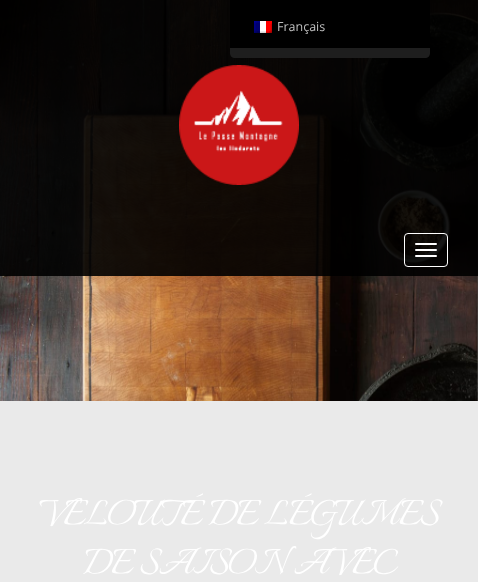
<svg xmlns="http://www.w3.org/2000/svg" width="478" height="582">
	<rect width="100%" height="100%" fill="#FFFFFF" />
	<image x="0" y="0" width="478" height="401" href="assets/img1.png" />
	<rect x="0" y="0" width="478" height="276" fill="#000000" fill-opacity="0.9" />
	<path d="M230 0H430V53C430 56 428 58 425 58H235C232 58 230 56 230 53Z" fill="#1E1E1E" />
	<rect x="230" y="0" width="200" height="48" fill="#000000" />
	<image x="254" y="21" width="18" height="12" href="assets/img2.png" />
	<text x="277" y="31" font-family="Open Sans" font-size="12.5" fill="#BDBDBD">Français</text>
	<image x="179" y="65" width="120" height="120" href="assets/img3.png" />
	<rect x="404.5" y="233.5" width="43" height="33" rx="3.5" fill="none" stroke="#FFFFFF" />
	<rect x="415" y="243" width="22" height="2" rx="1" fill="#FFFFFF" />
	<rect x="415" y="249" width="22" height="2" rx="1" fill="#FFFFFF" />
	<rect x="415" y="255" width="22" height="2" rx="1" fill="#FFFFFF" />
	<rect x="0" y="401" width="478" height="181" fill="#EAEAEA" />
	<g font-family="Italianno" font-size="44" fill="#FFFFFF">
		<text x="39" y="524">VELOUTÉ DE LÉGUMES</text>
		<text x="83" y="573">DE SAISON AVEC</text>
	</g>
</svg>
